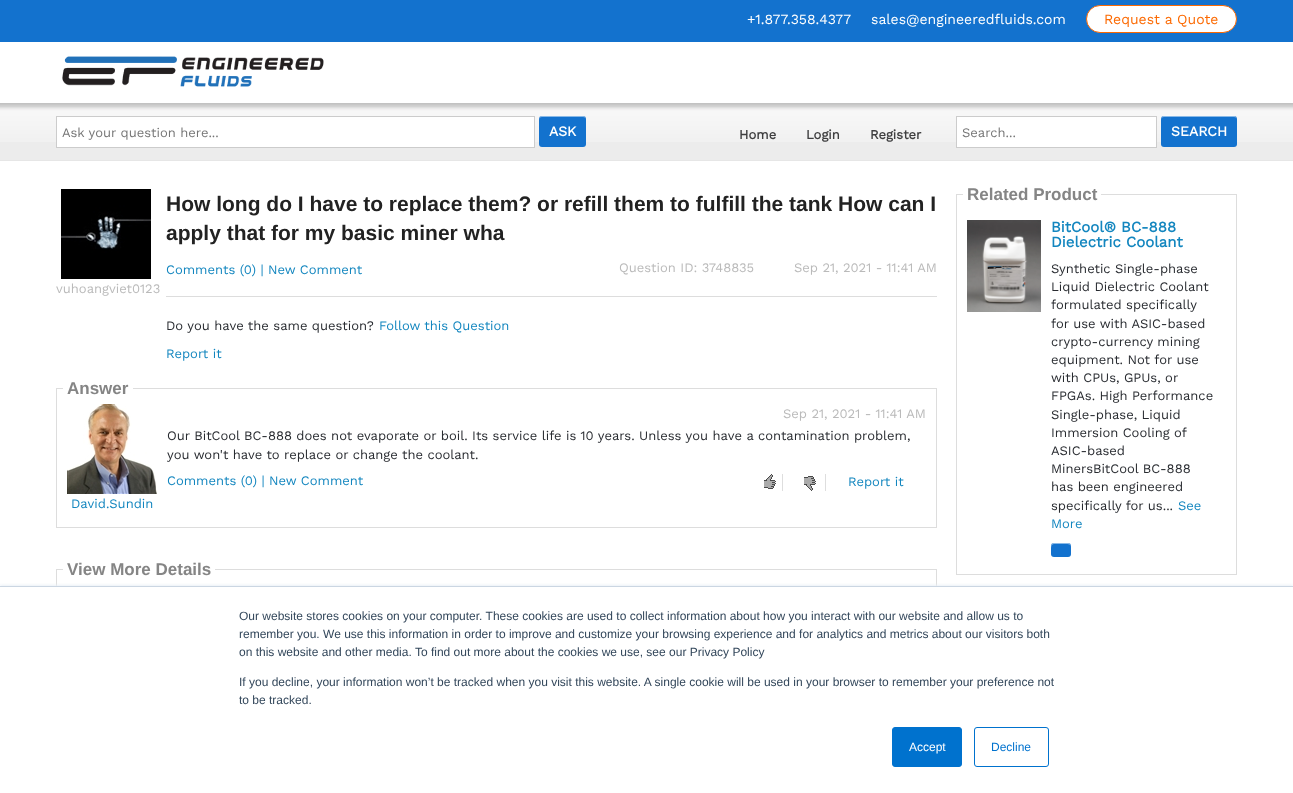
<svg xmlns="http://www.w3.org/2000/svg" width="1293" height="793">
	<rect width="100%" height="100%" fill="#FFFFFF" />
	<rect x="0" y="0" width="1293" height="42" fill="#1372CE" />
	<g font-family="Work Sans" font-size="14" fill="#FFFFFF">
		<text x="747" y="24">+1.877.358.4377</text>
		<text x="871" y="24">sales@engineeredfluids.com</text>
	</g>
	<rect x="1086.5" y="5.5" width="150" height="27" rx="13.5" fill="#FFFFFF" stroke="#FC6901" />
	<text x="1104" y="24" font-family="Work Sans" font-size="14" fill="#FC6901">Request a Quote</text>
	<image x="62" y="56" width="262" height="31" href="assets/img1.png" />
	<rect x="0" y="142" width="1293" height="18" fill="#ECECEC" />
	<image x="0" y="103" width="1293" height="39" href="assets/img2.png" />
	<rect x="0" y="160" width="1293" height="1" fill="#E6E6E6" />
	<rect x="56.5" y="116.5" width="478" height="31" fill="#FFFFFF" stroke="#CCCCCC" />
	<text x="62" y="137" font-family="Work Sans" font-size="13" fill="#757575">Ask your question here...</text>
	<rect x="539" y="116" width="47" height="31" rx="3" fill="#1372CE" />
	<path d="M542 117H583C585 117 586 118 586 120C586 114 580 116 576 116H549C545 116 539 114 539 120C539 118 540 117 542 117Z" fill="#FFFFFF" fill-opacity="0.5" />
	<text x="549" y="136" font-family="Work Sans" font-size="14" font-weight="700" fill="#FFFFFF">ASK</text>
	<g font-family="Work Sans" font-size="13" font-weight="700" fill="#3F3F40">
		<text x="739" y="139">Home</text>
		<text x="806" y="139">Login</text>
		<text x="870" y="139">Register</text>
	</g>
	<rect x="956.5" y="116.5" width="200" height="31" fill="#FFFFFF" stroke="#CCCCCC" />
	<text x="962" y="137" font-family="Work Sans" font-size="13" fill="#757575">Search...</text>
	<rect x="1161" y="116" width="76" height="31" rx="3" fill="#1372CE" />
	<path d="M1164 117H1234C1236 117 1237 118 1237 120C1237 113 1226 116 1222 116H1176C1172 116 1161 113 1161 120C1161 118 1162 117 1164 117Z" fill="#FFFFFF" fill-opacity="0.5" />
	<text x="1171" y="136" font-family="Work Sans" font-size="14" font-weight="700" fill="#FFFFFF">SEARCH</text>
	<image x="61" y="189" width="90" height="90" href="assets/img3.png" />
	<text x="56" y="293" font-family="Work Sans" font-size="13" fill="#BABABA">vuhoangviet0123</text>
	<g font-family="Liberation Sans" font-size="21" font-weight="700" fill="#222222">
		<text x="166" y="211">How long do I have to replace them? or refill them to fulfill the tank How can I</text>
		<text x="166" y="240">apply that for my basic miner wha</text>
	</g>
	<text x="166" y="274" font-family="Work Sans" font-size="13" fill="#1386BF">Comments (0) | New Comment</text>
	<g font-family="Work Sans" font-size="13" fill="#BABABA">
		<text x="619" y="272">Question ID: 3748835</text>
		<text x="794" y="272">Sep 21, 2021 - 11:41 AM</text>
	</g>
	<rect x="166" y="296" width="771" height="1" fill="#DDDDDD" />
	<text x="166" y="330" font-family="Work Sans" font-size="13" fill="#282B30">Do you have the same question?</text>
	<g font-family="Work Sans" font-size="13" fill="#1386BF">
		<text x="379" y="330">Follow this Question</text>
		<text x="166" y="358">Report it</text>
	</g>
	<rect x="56.5" y="388.5" width="880" height="139" fill="none" stroke="#DDDDDD" />
	<rect x="63" y="388" width="70" height="1" fill="#FFFFFF" />
	<text x="67" y="394" font-family="Liberation Sans" font-size="17" font-weight="700" fill="#858585">Answer</text>
	<text x="783" y="418" font-family="Work Sans" font-size="13" fill="#BABABA">Sep 21, 2021 - 11:41 AM</text>
	<g font-family="Work Sans" font-size="13" fill="#282B30">
		<text x="167" y="440">Our BitCool BC-888 does not evaporate or boil. Its service life is 10 years. Unless you have a contamination problem,</text>
		<text x="167" y="459">you won't have to replace or change the coolant.</text>
	</g>
	<text x="167" y="485" font-family="Work Sans" font-size="13" fill="#1386BF">Comments (0) | New Comment</text>
	<rect x="782" y="474" width="1" height="17" fill="#DEDEDE" />
	<image x="764" y="474" width="12" height="15" href="assets/img4.png" />
	<rect x="825" y="474" width="1" height="17" fill="#DEDEDE" />
	<image x="804" y="476" width="12" height="15" href="assets/img5.png" />
	<text x="848" y="486" font-family="Work Sans" font-size="13" fill="#1386BF">Report it</text>
	<image x="67" y="404" width="90" height="90" href="assets/img6.png" />
	<text x="71" y="508" font-family="Work Sans" font-size="13" fill="#1386BF">David.Sundin</text>
	<rect x="56.5" y="569.5" width="880" height="147" fill="none" stroke="#DDDDDD" />
	<rect x="63" y="569" width="152" height="1" fill="#FFFFFF" />
	<text x="67" y="575" font-family="Liberation Sans" font-size="17" font-weight="700" fill="#858585">View More Details</text>
	<rect x="956.5" y="194.5" width="280" height="380" fill="none" stroke="#DDDDDD" />
	<rect x="963" y="194" width="138" height="1" fill="#FFFFFF" />
	<text x="967" y="200" font-family="Liberation Sans" font-size="17" font-weight="700" fill="#858585">Related Product</text>
	<image x="967" y="220" width="74" height="92" href="assets/img7.png" />
	<g font-family="Work Sans" font-size="15" font-weight="700" fill="#1386BF">
		<text x="1051" y="232">BitCool® BC-888</text>
		<text x="1051" y="247">Dielectric Coolant</text>
	</g>
	<g font-family="Work Sans" font-size="13" fill="#282B30">
		<text x="1051" y="273">Synthetic Single-phase</text>
		<text x="1051" y="291">Liquid Dielectric Coolant</text>
		<text x="1051" y="309">formulated specifically</text>
		<text x="1051" y="328">for use with ASIC-based</text>
		<text x="1051" y="346">crypto-currency mining</text>
		<text x="1051" y="364">equipment. Not for use</text>
		<text x="1051" y="382">with CPUs, GPUs, or</text>
		<text x="1051" y="400">FPGAs. High Performance</text>
		<text x="1051" y="419">Single-phase, Liquid</text>
		<text x="1051" y="437">Immersion Cooling of</text>
		<text x="1051" y="455">ASIC-based</text>
		<text x="1051" y="473">MinersBitCool BC-888</text>
		<text x="1051" y="491">has been engineered</text>
		<text x="1051" y="510">specifically for us...</text>
	</g>
	<g font-family="Work Sans" font-size="13" fill="#1386BF">
		<text x="1178" y="510">See</text>
		<text x="1051" y="528">More</text>
	</g>
	<rect x="1051" y="543" width="20" height="14" rx="3" fill="#1372CE" />
	<path d="M1054 544H1066C1070 544 1071 545 1071 547V546C1071 544.5 1069.5 543 1068 543H1054C1052.5 543 1051 544.5 1051 546V550C1051 548 1051 544 1054 544ZM1071 552V555Z" fill="#FFFFFF" fill-opacity="0.5" fill-rule="evenodd" />
	<rect x="0" y="585" width="1293" height="207" fill="#EAF0F6" filter="blur(1.5px)" />
	<rect x="0" y="587" width="1293" height="206" fill="#FFFFFF" />
	<rect x="0" y="586" width="1293" height="1" fill="#CBD6E2" />
	<g font-family="Liberation Sans" font-size="12" fill="#33475B">
		<text x="239" y="620">Our website stores cookies on your computer. These cookies are used to collect information about how you interact with our website and allow us to</text>
		<text x="239" y="638">remember you. We use this information in order to improve and customize your browsing experience and for analytics and metrics about our visitors both</text>
		<text x="239" y="656">on this website and other media. To find out more about the cookies we use, see our Privacy Policy</text>
		<text x="239" y="686">If you decline, your information won’t be tracked when you visit this website. A single cookie will be used in your browser to remember your preference not</text>
		<text x="239" y="704">to be tracked.</text>
	</g>
	<rect x="892.5" y="727.5" width="69" height="39" rx="2.5" fill="#0072CE" stroke="#0072CE" />
	<text x="909" y="751" font-family="Liberation Sans" font-size="12" fill="#FFFFFF">Accept</text>
	<rect x="974.5" y="727.5" width="74" height="39" rx="2.5" fill="none" stroke="#0072CE" />
	<text x="991" y="751" font-family="Liberation Sans" font-size="12" fill="#0072CE">Decline</text>
</svg>
